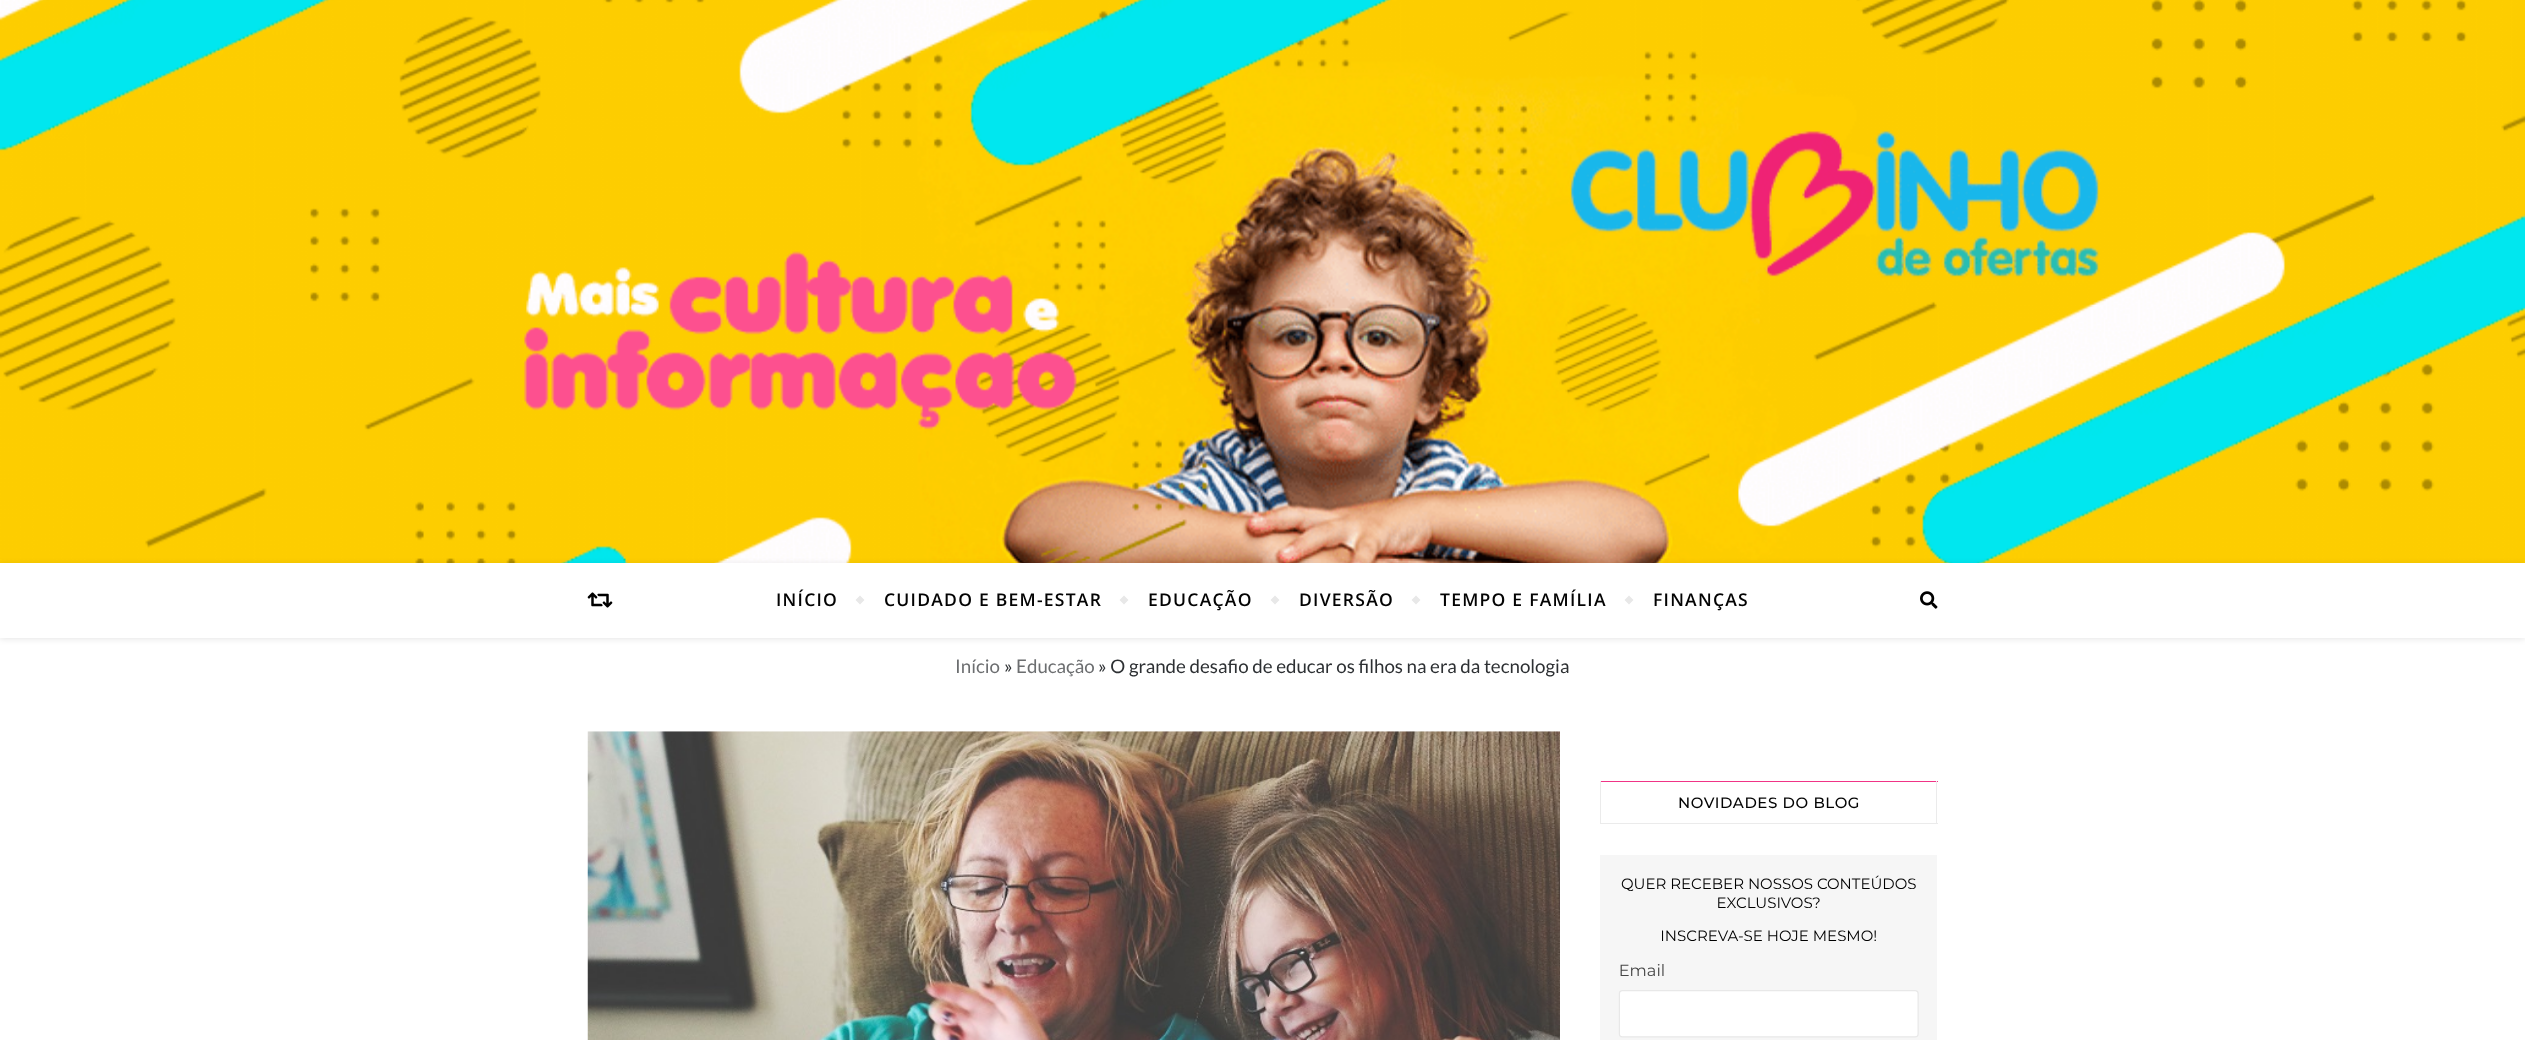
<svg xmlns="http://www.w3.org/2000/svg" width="2525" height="1040">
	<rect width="100%" height="100%" fill="#FFFFFF" />
	<image x="0" y="0" width="2525" height="563" href="assets/img1.png" />
	<rect x="0" y="564" width="2525" height="75" fill="#000000" fill-opacity="0.1" filter="blur(3px)" />
	<rect x="0" y="563" width="2525" height="75" fill="#FFFFFF" />
	<image x="587" y="592" width="26" height="16" href="assets/img2.png" />
	<text x="776" y="606" font-family="Open Sans" font-size="17.5" font-weight="600" letter-spacing="1.25" fill="#030303">INÍCIO</text>
	<path d="M855.5 600L860 595.5L864.5 600L860 604.5Z" fill="#E8E8E8" />
	<text x="884" y="606" font-family="Open Sans" font-size="17.5" font-weight="600" letter-spacing="1.25" fill="#030303">CUIDADO E BEM-ESTAR</text>
	<path d="M1119.5 600L1124 595.5L1128.5 600L1124 604.5Z" fill="#E8E8E8" />
	<text x="1148" y="606" font-family="Open Sans" font-size="17.5" font-weight="600" letter-spacing="1.25" fill="#030303">EDUCAÇÃO</text>
	<path d="M1270.5 600L1275 595.5L1279.5 600L1275 604.5Z" fill="#E8E8E8" />
	<text x="1299" y="606" font-family="Open Sans" font-size="17.5" font-weight="600" letter-spacing="1.25" fill="#030303">DIVERSÃO</text>
	<path d="M1411.5 600L1416 595.5L1420.5 600L1416 604.5Z" fill="#E8E8E8" />
	<text x="1440" y="606" font-family="Open Sans" font-size="17.5" font-weight="600" letter-spacing="1.25" fill="#030303">TEMPO E FAMÍLIA</text>
	<path d="M1624.5 600L1629 595.5L1633.5 600L1629 604.5Z" fill="#E8E8E8" />
	<text x="1653" y="606" font-family="Open Sans" font-size="17.5" font-weight="600" letter-spacing="1.25" fill="#030303">FINANÇAS</text>
	<image x="1920" y="591" width="18" height="18" href="assets/img3.png" />
	<text x="955" y="673" font-family="Lato" font-size="18.75" fill="#6C6E70">Início</text>
	<text x="1004" y="673" font-family="Lato" font-size="18.75" fill="#2D3033">»</text>
	<text x="1016" y="673" font-family="Lato" font-size="18.75" fill="#6C6E70">Educação</text>
	<text x="1098" y="673" font-family="Lato" font-size="18.75" fill="#2D3033">» O grande desafio de educar os filhos na era da tecnologia</text>
	<image x="587" y="731" width="973" height="309" href="assets/img4.png" />
	<rect x="1600" y="781" width="338" height="1" fill="#F03486" />
	<rect x="1936" y="781" width="1" height="43" fill="#EBEBEB" />
	<rect x="1600" y="823" width="338" height="1" fill="#EBEBEB" />
	<rect x="1600" y="781" width="1" height="43" fill="#EBEBEB" />
	<text x="1678" y="808" font-family="Montserrat" font-size="15" font-weight="500" letter-spacing="0.6" fill="#030303">NOVIDADES DO BLOG</text>
	<image x="1600" y="855" width="337" height="185" href="assets/img5.png" />
</svg>
